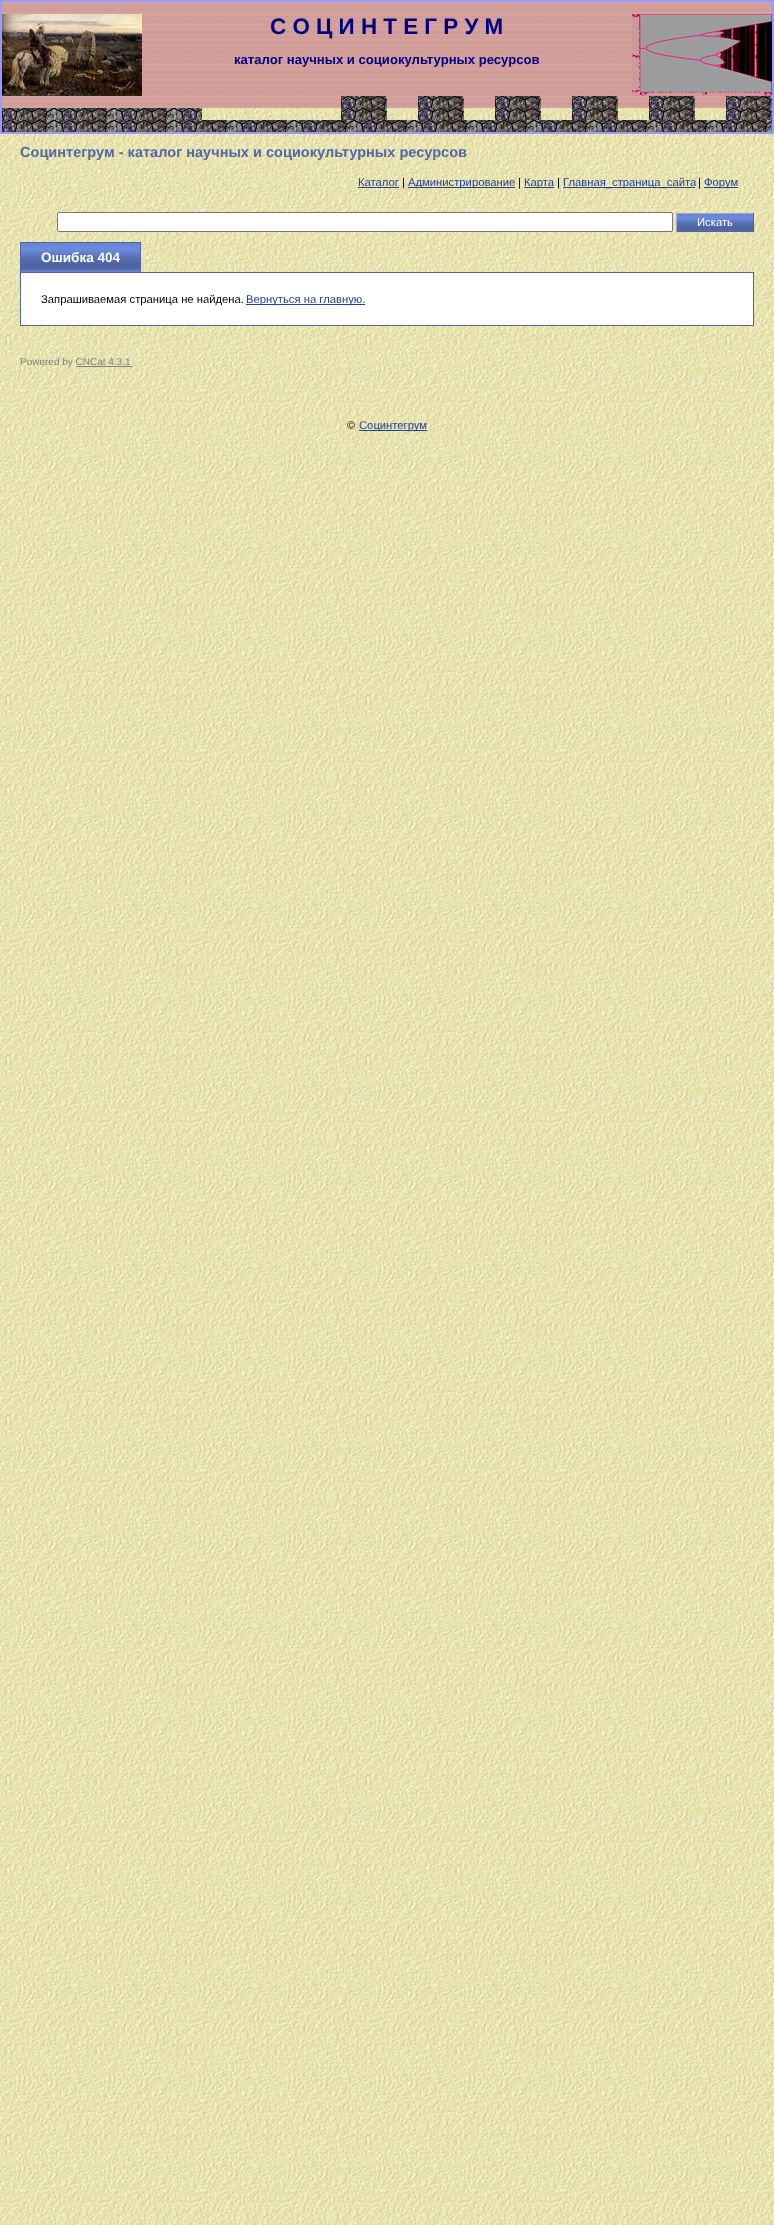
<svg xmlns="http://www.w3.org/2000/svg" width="774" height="2225">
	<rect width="100%" height="100%" fill="#FFFFFF" />
	<image x="0" y="134" width="774" height="2091" href="assets/img1.png" />
	<rect x="0" y="0" width="774" height="2" fill="#9999FF" />
	<rect x="772" y="0" width="2" height="134" fill="#9999FF" />
	<rect x="0" y="132" width="774" height="2" fill="#9999FF" />
	<rect x="0" y="0" width="2" height="134" fill="#9999FF" />
	<image x="2" y="2" width="770" height="12" href="assets/img2.png" />
	<image x="142" y="14" width="44" height="82" href="assets/img3.png" />
	<image x="2" y="14" width="140" height="82" href="assets/img4.png" />
	<image x="186" y="14" width="402" height="82" href="assets/img5.png" />
	<text x="270" y="34" font-family="Liberation Sans" font-size="22.4" font-weight="700" fill="#000080">С О Ц И Н Т Е Г Р У М</text>
	<text x="234" y="64" font-family="Liberation Sans" font-size="13.1" font-weight="700" fill="#000080">каталог научных и социокультурных ресурсов</text>
	<image x="588" y="14" width="44" height="82" href="assets/img3.png" />
	<image x="632" y="14" width="140" height="82" href="assets/img6.png" />
	<image x="2" y="96" width="339" height="12" href="assets/img7.png" />
	<image x="341" y="96" width="46" height="12" href="assets/img8.png" />
	<image x="387" y="96" width="31" height="12" href="assets/img9.png" />
	<image x="418" y="96" width="46" height="12" href="assets/img8.png" />
	<image x="464" y="96" width="31" height="12" href="assets/img9.png" />
	<image x="495" y="96" width="46" height="12" href="assets/img8.png" />
	<image x="541" y="96" width="31" height="12" href="assets/img9.png" />
	<image x="572" y="96" width="46" height="12" href="assets/img8.png" />
	<image x="618" y="96" width="31" height="12" href="assets/img9.png" />
	<image x="649" y="96" width="46" height="12" href="assets/img8.png" />
	<image x="695" y="96" width="31" height="12" href="assets/img9.png" />
	<image x="726" y="96" width="46" height="12" href="assets/img10.png" />
	<image x="2" y="108" width="200" height="12" href="assets/img11.png" />
	<image x="202" y="108" width="139" height="12" href="assets/img12.png" />
	<image x="341" y="108" width="46" height="12" href="assets/img8.png" />
	<image x="387" y="108" width="31" height="12" href="assets/img13.png" />
	<image x="418" y="108" width="46" height="12" href="assets/img8.png" />
	<image x="464" y="108" width="31" height="12" href="assets/img13.png" />
	<image x="495" y="108" width="46" height="12" href="assets/img8.png" />
	<image x="541" y="108" width="31" height="12" href="assets/img13.png" />
	<image x="572" y="108" width="46" height="12" href="assets/img8.png" />
	<image x="618" y="108" width="31" height="12" href="assets/img13.png" />
	<image x="649" y="108" width="46" height="12" href="assets/img8.png" />
	<image x="695" y="108" width="31" height="12" href="assets/img13.png" />
	<image x="726" y="108" width="46" height="12" href="assets/img10.png" />
	<image x="2" y="120" width="770" height="12" href="assets/img14.png" />
	<text x="20" y="157" font-family="Liberation Sans" font-size="14.55" font-weight="700" fill="#5268A7">Социнтегрум - каталог научных и социокультурных ресурсов</text>
	<text x="358" y="186" font-family="Liberation Sans" font-size="11.25" fill="#244296">Каталог</text>
	<rect x="358" y="187" width="41" height="1" fill="#244296" />
	<text x="402" y="186" font-family="Liberation Sans" font-size="11.25" fill="#000000">|</text>
	<rect x="408" y="187" width="107" height="1" fill="#244296" />
	<text x="408" y="186" font-family="Liberation Sans" font-size="11.25" fill="#244296">Администрирование</text>
	<text x="518" y="186" font-family="Liberation Sans" font-size="11.25" fill="#000000">|</text>
	<rect x="524" y="187" width="30" height="1" fill="#244296" />
	<text x="524" y="186" font-family="Liberation Sans" font-size="11.25" fill="#244296">Карта</text>
	<text x="557" y="186" font-family="Liberation Sans" font-size="11.25" fill="#000000">|</text>
	<rect x="563" y="187" width="132" height="1" fill="#244296" />
	<text x="563" y="186" font-family="Liberation Sans" font-size="11.25" fill="#244296">Главная_страница_сайта</text>
	<text x="698" y="186" font-family="Liberation Sans" font-size="11.25" fill="#000000">|</text>
	<rect x="704" y="187" width="34" height="1" fill="#244296" />
	<text x="704" y="186" font-family="Liberation Sans" font-size="11.25" fill="#244296">Форум</text>
	<rect x="57.5" y="212.5" width="615" height="19" rx="1.5" fill="#FFFFFF" stroke="#767676" />
	<image x="677" y="214" width="76" height="17" href="assets/img15.png" />
	<rect x="676" y="213" width="78" height="1" fill="#97A9DF" />
	<rect x="753" y="213" width="1" height="19" fill="#4F64A0" />
	<rect x="676" y="231" width="78" height="1" fill="#4F64A0" />
	<rect x="676" y="213" width="1" height="19" fill="#97A9DF" />
	<text x="697" y="226" font-family="Liberation Sans" font-size="11.25" fill="#FFFFFF">Искать</text>
	<image x="21" y="243" width="119" height="29" href="assets/img16.png" />
	<rect x="20" y="242" width="121" height="1" fill="#5167A5" />
	<rect x="140" y="242" width="1" height="31" fill="#5167A5" />
	<rect x="20" y="242" width="1" height="31" fill="#5167A5" />
	<text x="41" y="262" font-family="Liberation Sans" font-size="13.5" font-weight="700" fill="#FFFFFF">Ошибка 404</text>
	<rect x="20.5" y="272.5" width="733" height="53" fill="#FFFFFF" stroke="#5167A5" />
	<text x="41" y="303" font-family="Liberation Sans" font-size="11.25" fill="#000000">Запрашиваемая страница не найдена.</text>
	<rect x="246" y="304" width="119" height="1" fill="#244296" />
	<text x="246" y="303" font-family="Liberation Sans" font-size="11.25" fill="#244296">Вернуться на главную.</text>
	<text x="20" y="365" font-family="Liberation Sans" font-size="10" fill="#808080">Powered by CNCat 4.3.1</text>
	<rect x="76" y="366" width="56" height="1" fill="#808080" />
	<text x="347" y="429" font-family="Liberation Sans" font-size="11.25" fill="#000000">©</text>
	<rect x="359" y="430" width="68" height="1" fill="#244296" />
	<text x="359" y="429" font-family="Liberation Sans" font-size="11.25" fill="#244296">Социнтегрум</text>
</svg>
